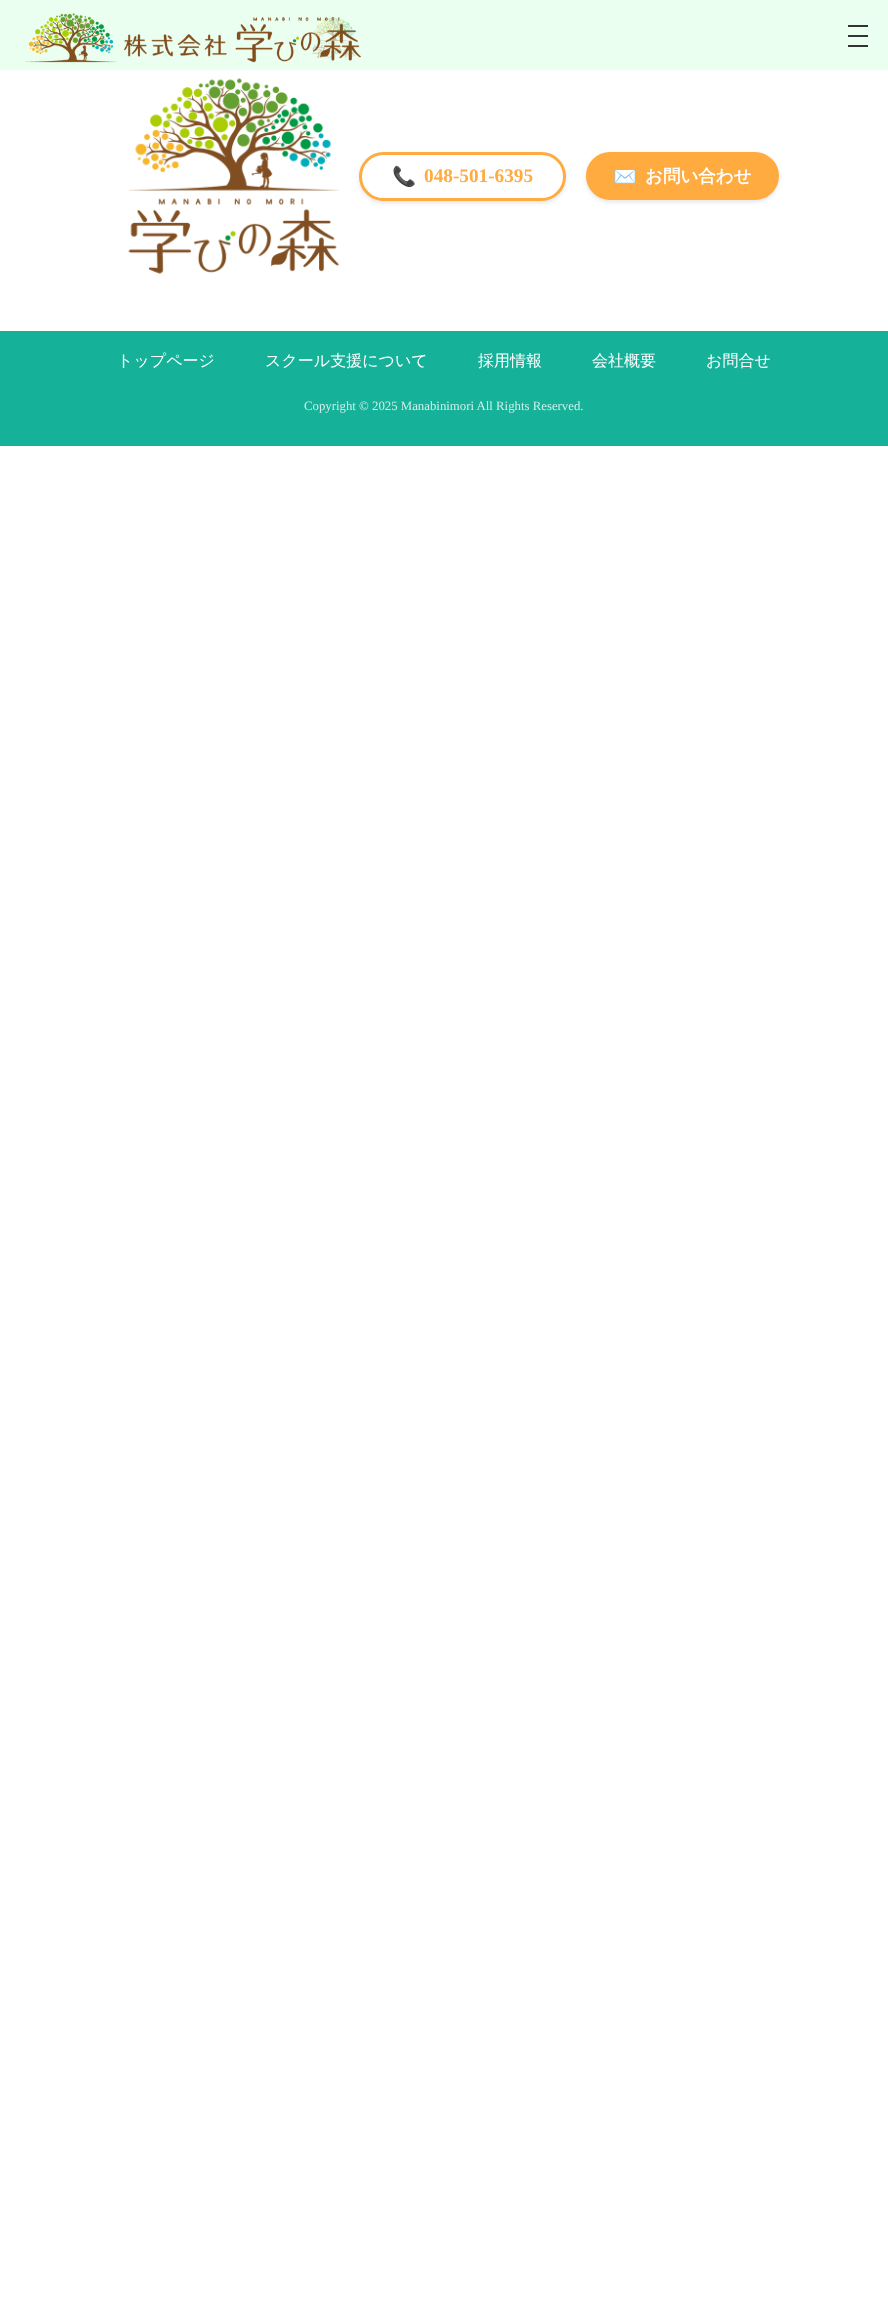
<svg xmlns="http://www.w3.org/2000/svg" width="888" height="2301">
	<rect width="100%" height="100%" fill="#FFFFFF" />
	<rect x="0" y="0" width="888" height="70" fill="#EBFFF0" />
	<image x="25" y="13" width="336" height="50" href="assets/img1.png" />
	<rect x="848" y="25" width="20" height="2" fill="#333333" />
	<rect x="848" y="35" width="20" height="2" fill="#333333" />
	<rect x="848" y="45" width="20" height="2" fill="#333333" />
	<image x="128" y="78" width="212" height="196" href="assets/img2.png" />
	<rect x="359" y="154" width="207" height="49" rx="24.5" fill="#000000" fill-opacity="0.1" filter="blur(2px)" />
	<rect x="360.5" y="153.5" width="204" height="46" rx="23" fill="#FFFFFF" stroke="#FFAB40" stroke-width="3" />
	<text x="392" y="183" font-family="Noto Color Emoji" font-size="19.25" font-weight="700" fill="#FFAB40">📞</text>
	<text x="424" y="182" font-family="Liberation Serif" font-size="19.25" font-weight="700" fill="#FFAB40">048-501-6395</text>
	<rect x="586" y="154" width="193" height="48" rx="24" fill="#000000" fill-opacity="0.1" filter="blur(2px)" />
	<rect x="587" y="153" width="191" height="46" rx="23" fill="#FFAB40" stroke="#FFAB40" stroke-width="2" />
	<text x="613" y="183" font-family="Noto Color Emoji" font-size="19.25" font-weight="700" fill="#FFFFFF">✉️</text>
	<text x="645" y="182" font-family="WenQuanYi Zen Hei" font-size="17.5" font-weight="700" fill="#FFFFFF">お問い合わせ</text>
	<rect x="0" y="331" width="888" height="115" fill="#16B199" />
	<g font-family="WenQuanYi Zen Hei" font-size="16" font-weight="500" fill="#FFFFFF">
		<text x="117" y="366">トップページ</text>
		<text x="265" y="366">スクール支援について</text>
		<text x="478" y="366">採用情報</text>
		<text x="592" y="366">会社概要</text>
		<text x="706" y="366">お問合せ</text>
	</g>
	<text x="304" y="410" font-family="Liberation Serif" font-size="12.8" fill="#D0EFEB">Copyright © 2025 Manabinimori All Rights Reserved.</text>
</svg>
